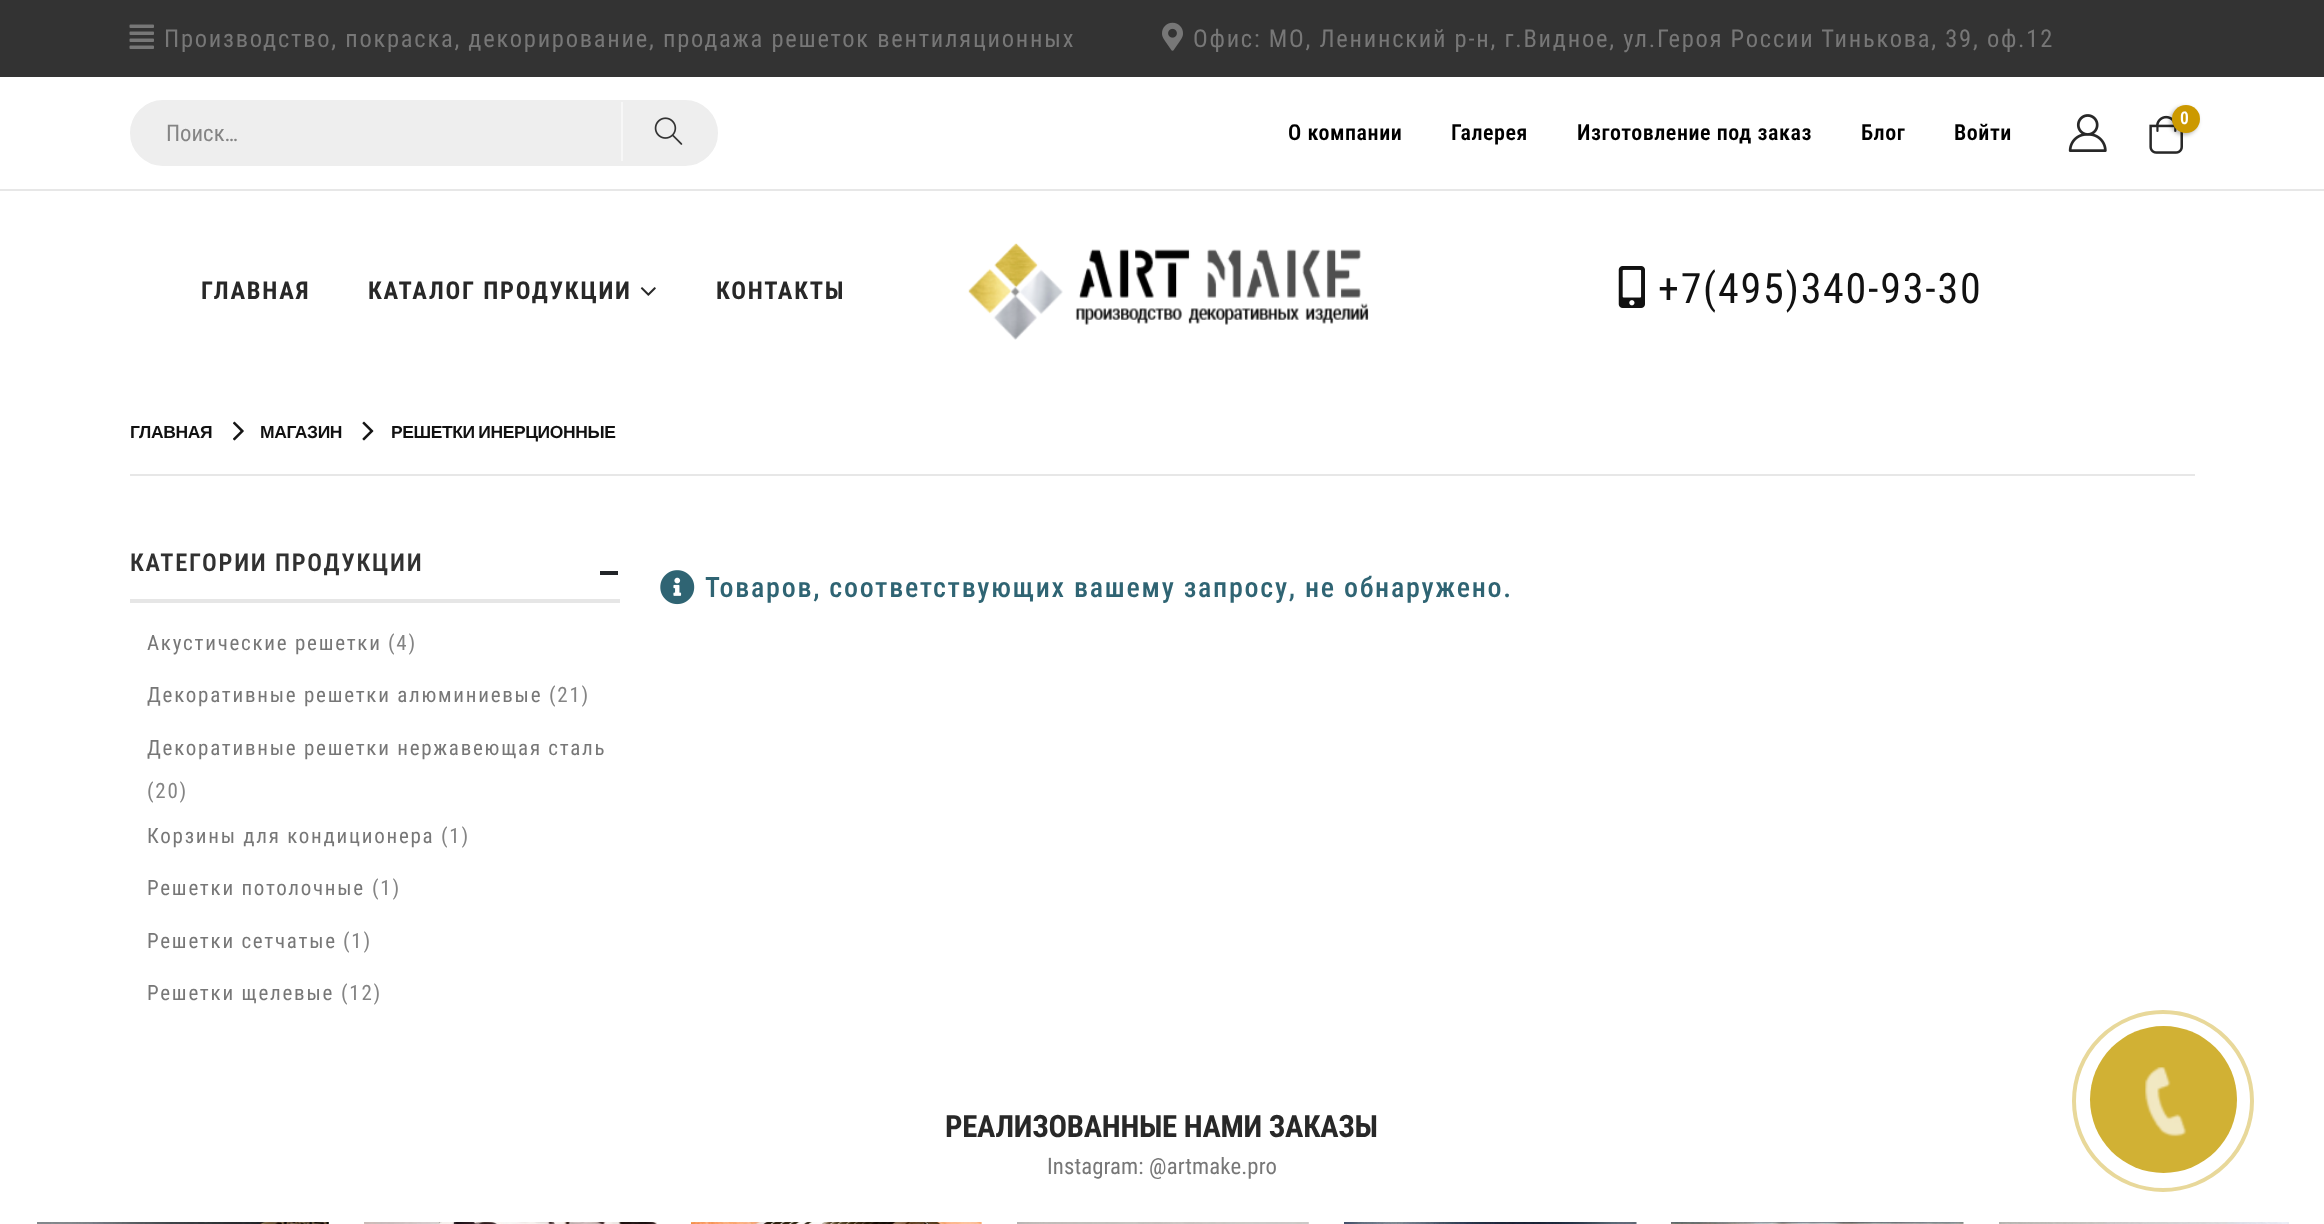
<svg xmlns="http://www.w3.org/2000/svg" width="2324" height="1224">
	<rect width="100%" height="100%" fill="#FFFFFF" />
	<rect x="0" y="0" width="2324" height="77" fill="#333333" />
	<image x="129" y="24" width="25" height="25" href="assets/img1.png" />
	<text x="164" y="47" font-family="Roboto Condensed" font-size="24.5" letter-spacing="1.75" fill="#777777">Производство, покраска, декорирование, продажа решеток вентиляционных</text>
	<image x="1162" y="22" width="21" height="29" href="assets/img2.png" />
	<text x="1193" y="47" font-family="Roboto Condensed" font-size="24.5" letter-spacing="1.75" fill="#777777">Офис: МО, Ленинский р-н, г.Видное, ул.Героя России Тинькова, 39, оф.12</text>
	<rect x="0" y="189" width="2324" height="2" fill="#E7E7E7" />
	<rect x="131" y="101" width="586" height="64" rx="32" fill="#EEEEEE" stroke="#EEEEEE" stroke-width="2" />
	<text x="166" y="141" font-family="Roboto Condensed" font-size="22.75" fill="#848484">Поиск…</text>
	<rect x="621" y="102" width="2" height="59" fill="#F7F7F7" />
	<image x="654" y="117" width="29" height="28" href="assets/img3.png" />
	<g font-family="Roboto Condensed" font-size="22" font-weight="600" letter-spacing="0.55" fill="#000000">
		<text x="1288" y="140">О компании</text>
		<text x="1451" y="140">Галерея</text>
		<text x="1577" y="140">Изготовление под заказ</text>
		<text x="1861" y="140">Блог</text>
		<text x="1954" y="140">Войти</text>
	</g>
	<image x="2068" y="114" width="39" height="38" href="assets/img4.png" />
	<image x="2149" y="115" width="34" height="39" href="assets/img5.png" />
	<rect x="2170" y="107" width="28" height="28" rx="14" fill="#000000" fill-opacity="0.3" filter="blur(2px)" />
	<circle cx="2186" cy="119" r="14" fill="#CC9900" />
	<text x="2180" y="124" font-family="Roboto Condensed" font-size="17.5" font-weight="600" letter-spacing="1.75" fill="#FFFFFF">0</text>
	<g font-family="Roboto Condensed" font-size="24.5" font-weight="700" letter-spacing="1.75" fill="#282828">
		<text x="201" y="299">ГЛАВНАЯ</text>
		<text x="368" y="299">КАТАЛОГ ПРОДУКЦИИ</text>
	</g>
	<image x="640" y="287" width="16" height="9" href="assets/img6.png" />
	<text x="716" y="299" font-family="Roboto Condensed" font-size="24.5" font-weight="700" letter-spacing="1.75" fill="#282828">КОНТАКТЫ</text>
	<image x="968" y="243" width="401" height="97" href="assets/img7.png" />
	<image x="1618" y="266" width="27" height="42" href="assets/img8.png" />
	<text x="1658" y="303" font-family="Roboto Condensed" font-size="42" letter-spacing="1.75" fill="#111111">+7(495)340-93-30</text>
	<text x="130" y="438" font-family="Liberation Sans" font-size="17.5" font-weight="700" letter-spacing="-0.4" fill="#111111">ГЛАВНАЯ</text>
	<image x="233" y="421" width="11" height="20" href="assets/img9.png" />
	<text x="260" y="438" font-family="Liberation Sans" font-size="17.5" font-weight="700" letter-spacing="-0.4" fill="#111111">МАГАЗИН</text>
	<image x="362" y="421" width="12" height="20" href="assets/img10.png" />
	<text x="391" y="438" word-spacing="-1" font-family="Liberation Sans" font-size="17.5" font-weight="700" letter-spacing="-0.4" fill="#111111">РЕШЕТКИ ИНЕРЦИОННЫЕ</text>
	<rect x="130" y="474" width="2065" height="2" fill="#E7E7E7" />
	<rect x="130" y="599" width="490" height="4" fill="#E6E6E6" />
	<text x="130" y="571" font-family="Roboto Condensed" font-size="24.5" font-weight="600" letter-spacing="1.75" fill="#313131">КАТЕГОРИИ ПРОДУКЦИИ</text>
	<rect x="600" y="571" width="18" height="4" fill="#222529" />
	<text x="147" y="650" font-family="Roboto Condensed" font-size="21" letter-spacing="1.75" fill="#777777">Акустические решетки</text>
	<text x="388" y="650" font-family="Roboto Condensed" font-size="21" letter-spacing="1.75" fill="#848484">(4)</text>
	<text x="147" y="702" font-family="Roboto Condensed" font-size="21" letter-spacing="1.75" fill="#777777">Декоративные решетки алюминиевые</text>
	<text x="549" y="702" font-family="Roboto Condensed" font-size="21" letter-spacing="1.75" fill="#848484">(21)</text>
	<text x="147" y="755" font-family="Roboto Condensed" font-size="21" letter-spacing="1.75" fill="#777777">Декоративные решетки нержавеющая сталь</text>
	<text x="147" y="798" font-family="Roboto Condensed" font-size="21" letter-spacing="1.75" fill="#848484">(20)</text>
	<text x="147" y="843" font-family="Roboto Condensed" font-size="21" letter-spacing="1.75" fill="#777777">Корзины для кондиционера</text>
	<text x="441" y="843" font-family="Roboto Condensed" font-size="21" letter-spacing="1.75" fill="#848484">(1)</text>
	<text x="147" y="895" font-family="Roboto Condensed" font-size="21" letter-spacing="1.75" fill="#777777">Решетки потолочные</text>
	<text x="372" y="895" font-family="Roboto Condensed" font-size="21" letter-spacing="1.75" fill="#848484">(1)</text>
	<text x="147" y="948" font-family="Roboto Condensed" font-size="21" letter-spacing="1.75" fill="#777777">Решетки сетчатые</text>
	<text x="343" y="948" font-family="Roboto Condensed" font-size="21" letter-spacing="1.75" fill="#848484">(1)</text>
	<text x="147" y="1000" font-family="Roboto Condensed" font-size="21" letter-spacing="1.75" fill="#777777">Решетки щелевые</text>
	<text x="341" y="1000" font-family="Roboto Condensed" font-size="21" letter-spacing="1.75" fill="#848484">(12)</text>
	<image x="660" y="570" width="35" height="35" href="assets/img11.png" />
	<text x="705" y="597" font-family="Roboto Condensed" font-size="28" font-weight="500" letter-spacing="1.75" fill="#2F6473">Товаров, соответствующих вашему запросу, не обнаружено.</text>
	<text x="945" y="1137" font-family="Roboto Condensed" font-size="30.75" font-weight="700" letter-spacing="-0.3" fill="#282828">РЕАЛИЗОВАННЫЕ НАМИ ЗАКАЗЫ</text>
	<text x="1047" y="1174" font-family="Roboto Condensed" font-size="22.75" letter-spacing="0.1" fill="#777777">Instagram: @artmake.pro</text>
	<image x="37" y="1222" width="292" height="2" href="assets/img12.png" />
	<image x="364" y="1222" width="293" height="2" href="assets/img13.png" />
	<image x="691" y="1222" width="291" height="2" href="assets/img14.png" />
	<image x="1017" y="1222" width="292" height="2" href="assets/img15.png" />
	<image x="1344" y="1222" width="293" height="2" href="assets/img16.png" />
	<image x="1671" y="1222" width="293" height="2" href="assets/img17.png" />
	<image x="1999" y="1222" width="290" height="2" href="assets/img18.png" />
	<circle cx="2163" cy="1101" r="89" fill="none" stroke="#E8D89A" stroke-width="4" />
	<circle cx="2163.5" cy="1099.5" r="73.5" fill="#D1B134" />
	<image x="2145" y="1067" width="42" height="70" href="assets/img19.png" />
</svg>
